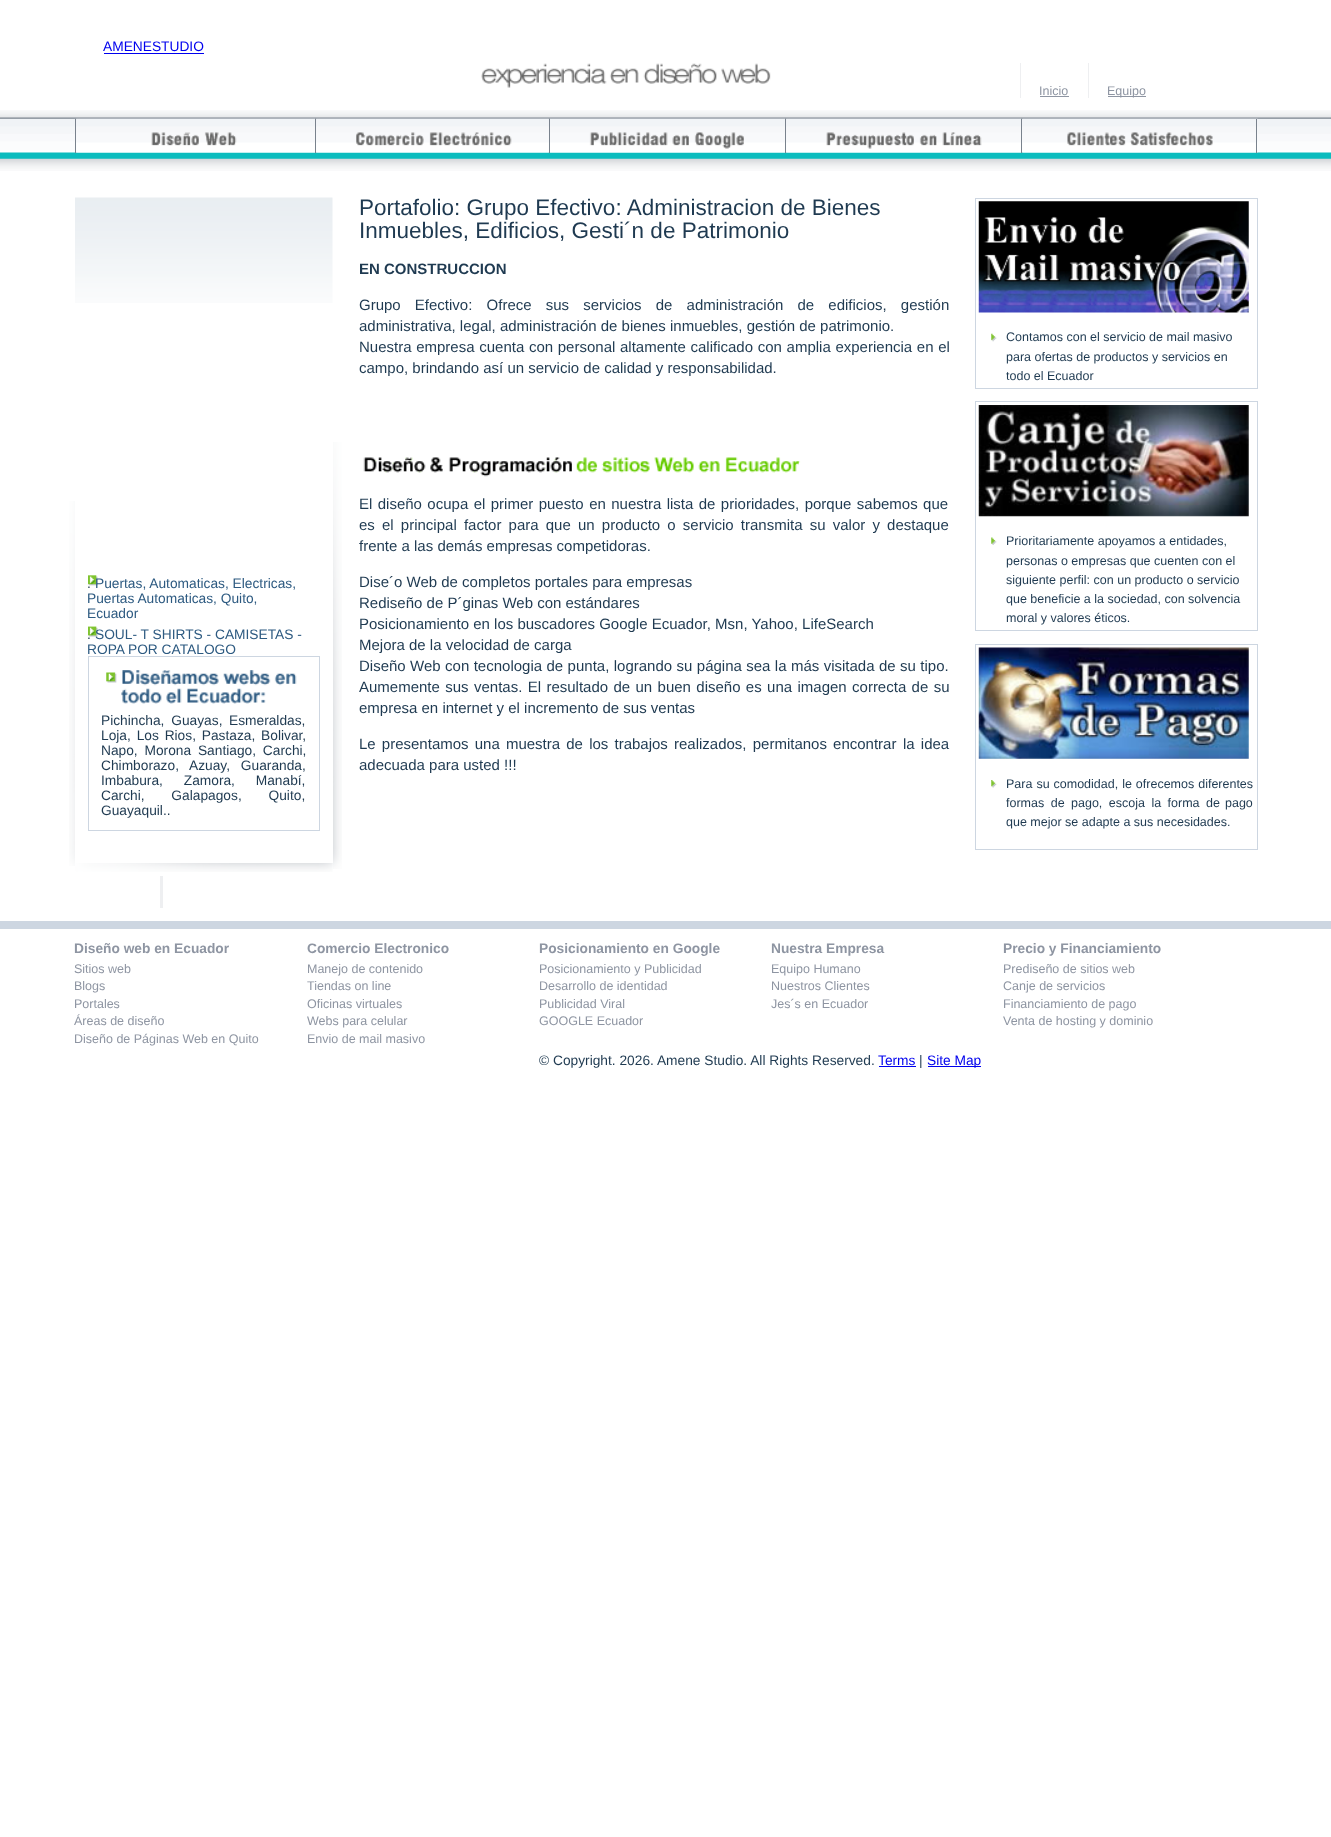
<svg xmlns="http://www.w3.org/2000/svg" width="1331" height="1837">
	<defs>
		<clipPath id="clip1"><rect x="88" y="216" width="225" height="438" /></clipPath>
	</defs>
	<rect width="100%" height="100%" fill="#FFFFFF" />
	<text x="103" y="51" font-family="Liberation Sans" font-size="13.75" fill="#0000EE">AMENESTUDIO</text>
	<rect x="104" y="53" width="100" height="1" fill="#0000EE" />
	<image x="481" y="63" width="290" height="25" href="assets/img1.png" />
	<rect x="1020" y="63" width="1" height="35" fill="#EEEFF1" />
	<text x="1039" y="95" font-family="Liberation Sans" font-size="12.5" fill="#8E95A2">Inicio</text>
	<rect x="1040" y="96" width="29" height="1" fill="#8E95A2" />
	<rect x="1088" y="63" width="1" height="35" fill="#EEEFF1" />
	<rect x="1108" y="96" width="38" height="1" fill="#8E95A2" />
	<text x="1107" y="95" font-family="Liberation Sans" font-size="12.5" fill="#8E95A2">Equipo</text>
	<image x="0" y="110" width="1331" height="61" href="assets/img2.png" />
	<image x="76" y="118" width="239" height="35" href="assets/img3.png" />
	<rect x="75" y="119" width="1" height="34" fill="#79828D" />
	<image x="316" y="118" width="233" height="35" href="assets/img4.png" />
	<rect x="315" y="119" width="1" height="34" fill="#79828D" />
	<image x="550" y="118" width="235" height="35" href="assets/img5.png" />
	<rect x="549" y="119" width="1" height="34" fill="#79828D" />
	<image x="786" y="118" width="236" height="35" href="assets/img6.png" />
	<rect x="785" y="119" width="1" height="34" fill="#79828D" />
	<image x="1022" y="118" width="236" height="35" href="assets/img7.png" />
	<rect x="1256" y="119" width="1" height="34" fill="#79828D" />
	<rect x="1021" y="119" width="1" height="34" fill="#79828D" />
	<image x="332" y="442" width="10" height="427" href="assets/img8.png" />
	<image x="69" y="501" width="6" height="365" href="assets/img9.png" />
	<image x="75" y="863" width="258" height="9" href="assets/img10.png" />
	<rect x="332" y="442" width="1" height="421" fill="#FFFFFF" />
	<image x="75" y="197" width="258" height="106" href="assets/img11.png" />
	<image x="88" y="575" width="10" height="11" href="assets/img12.png" />
	<text x="87" y="588" font-family="Liberation Sans" font-size="13.75" fill="#1F3A51">.</text>
	<g font-family="Liberation Sans" font-size="13.75" fill="#2D5A81">
		<text x="95" y="588">Puertas, Automaticas, Electricas,</text>
		<text x="87" y="603">Puertas Automaticas, Quito,</text>
		<text x="87" y="618">Ecuador</text>
	</g>
	<image x="88" y="626" width="10" height="11" href="assets/img13.png" />
	<text x="87" y="639" font-family="Liberation Sans" font-size="13.75" fill="#1F3A51">.</text>
	<text x="95" y="639" font-family="Liberation Sans" font-size="13.75" fill="#2D5A81">SOUL- T SHIRTS - CAMISETAS -</text>
	<g clip-path="url(#clip1)">
		<text x="87" y="654" font-family="Liberation Sans" font-size="13.75" fill="#2D5A81">ROPA POR CATALOGO</text>
	</g>
	<rect x="88.5" y="656.5" width="231" height="174" fill="none" stroke="#CDD6E1" />
	<image x="106" y="670" width="191" height="34" href="assets/img14.png" />
	<g font-family="Liberation Sans" font-size="13.75" fill="#1F3A51">
		<text x="101" y="725" word-spacing="3">Pichincha, Guayas,</text>
		<text x="229" y="725">Esmeraldas,</text>
		<text x="101" y="740" word-spacing="2">Loja, Los Rios, Pastaza, Bolivar,</text>
		<text x="101" y="755" word-spacing="3">Napo, Morona Santiago, Carchi,</text>
		<text x="101" y="770" word-spacing="7">Chimborazo, Azuay, Guaranda,</text>
		<text x="101" y="785" word-spacing="17">Imbabura, Zamora, Manabí,</text>
		<text x="101" y="800" word-spacing="23">Carchi, Galapagos, Quito,</text>
		<text x="101" y="815">Guayaquil..</text>
	</g>
	<g font-family="Liberation Sans" font-size="22.5" fill="#1F3A51">
		<text x="359" y="215">Portafolio: Grupo Efectivo: Administracion de Bienes</text>
		<text x="359" y="238">Inmuebles, Edificios, Gesti´n de Patrimonio</text>
	</g>
	<text x="359" y="274" font-family="Liberation Sans" font-size="15" font-weight="700" fill="#1F3A51">EN CONSTRUCCION</text>
	<g font-family="Liberation Sans" font-size="15" fill="#1F3A51">
		<text x="359" y="310" word-spacing="10">Grupo Efectivo: Ofrece sus servicios de administración de edificios, gestión</text>
		<text x="359" y="331">administrativa, legal, administración de bienes inmuebles, gestión de patrimonio.</text>
		<text x="359" y="352" word-spacing="0.5">Nuestra empresa cuenta con personal altamente calificado con amplia experiencia en el</text>
		<text x="359" y="373">campo, brindando así un servicio de calidad y responsabilidad.</text>
	</g>
	<image x="363" y="457" width="438" height="20" href="assets/img15.png" />
	<g font-family="Liberation Sans" font-size="15" fill="#1F3A51">
		<text x="359" y="509" word-spacing="1.25">El diseño ocupa el primer puesto en nuestra lista de prioridades, porque sabemos que</text>
		<text x="359" y="530" word-spacing="3">es el principal factor para que un producto o servicio transmita su valor y destaque</text>
		<text x="359" y="551">frente a las demás empresas competidoras.</text>
		<text x="359" y="587">Dise´o Web de completos portales para empresas</text>
		<text x="359" y="608">Rediseño de P´ginas Web con estándares</text>
		<text x="359" y="629">Posicionamiento en los buscadores Google Ecuador, Msn, Yahoo, LifeSearch</text>
		<text x="359" y="650">Mejora de la velocidad de carga</text>
		<text x="359" y="671" word-spacing="0.25">Diseño Web con tecnologia de punta, logrando su página sea la más visitada de su tipo.</text>
		<text x="359" y="692" word-spacing="1.2">Aumemente sus ventas. El resultado de un buen diseño es una imagen correcta de su</text>
		<text x="359" y="713">empresa en internet y el incremento de sus ventas</text>
		<text x="359" y="749" word-spacing="2">Le presentamos una muestra de los trabajos</text>
		<text x="674" y="749" word-spacing="2">realizados, permitanos encontrar</text>
		<text x="903" y="749" word-spacing="2">la idea</text>
		<text x="359" y="770">adecuada para usted !!!</text>
	</g>
	<rect x="975.5" y="198.5" width="282" height="190" fill="none" stroke="#CDD6E1" />
	<image x="978" y="201" width="271" height="112" href="assets/img16.png" />
	<image x="991" y="333" width="6" height="9" href="assets/img17.png" />
	<g font-family="Liberation Sans" font-size="12.5" fill="#1F3A51">
		<text x="1006" y="341">Contamos con el servicio de mail masivo</text>
		<text x="1006" y="361">para ofertas de productos y servicios en</text>
		<text x="1006" y="380">todo el Ecuador</text>
	</g>
	<rect x="975.5" y="401.5" width="282" height="229" fill="none" stroke="#CDD6E1" />
	<image x="978" y="405" width="271" height="112" href="assets/img18.png" />
	<image x="991" y="537" width="6" height="8" href="assets/img19.png" />
	<g font-family="Liberation Sans" font-size="12.5" fill="#1F3A51">
		<text x="1006" y="545">Prioritariamente apoyamos a entidades,</text>
		<text x="1006" y="565">personas o empresas que cuenten con el</text>
		<text x="1006" y="584">siguiente perfil: con un producto o servicio</text>
		<text x="1006" y="603">que beneficie a la sociedad, con solvencia</text>
		<text x="1006" y="622">moral y valores éticos.</text>
	</g>
	<rect x="975.5" y="644.5" width="282" height="205" fill="none" stroke="#CDD6E1" />
	<image x="978" y="647" width="271" height="112" href="assets/img20.png" />
	<image x="991" y="780" width="6" height="8" href="assets/img21.png" />
	<g font-family="Liberation Sans" font-size="12.5" fill="#1F3A51">
		<text x="1006" y="788" word-spacing="0.5">Para su comodidad, le ofrecemos diferentes</text>
		<text x="1006" y="807" word-spacing="3">formas de pago, escoja la forma de</text>
		<text x="1225" y="807">pago</text>
		<text x="1006" y="826">que mejor se adapte a sus necesidades.</text>
	</g>
	<rect x="160" y="876" width="3" height="32" fill="#EEEFF1" />
	<rect x="0" y="921" width="1331" height="8" fill="#CDD6E1" />
	<text x="74" y="953" font-family="Liberation Sans" font-size="13.75" font-weight="700" fill="#8E95A2">Diseño web en Ecuador</text>
	<g font-family="Liberation Sans" font-size="12.5" fill="#8E95A2">
		<text x="74" y="973">Sitios web</text>
		<text x="74" y="990">Blogs</text>
		<text x="74" y="1008">Portales</text>
		<text x="74" y="1025">Áreas de diseño</text>
		<text x="74" y="1043">Diseño de Páginas Web en Quito</text>
	</g>
	<text x="307" y="953" font-family="Liberation Sans" font-size="13.75" font-weight="700" fill="#8E95A2">Comercio Electronico</text>
	<g font-family="Liberation Sans" font-size="12.5" fill="#8E95A2">
		<text x="307" y="973">Manejo de contenido</text>
		<text x="307" y="990">Tiendas on line</text>
		<text x="307" y="1008">Oficinas virtuales</text>
		<text x="307" y="1025">Webs para celular</text>
		<text x="307" y="1043">Envio de mail masivo</text>
	</g>
	<text x="539" y="953" font-family="Liberation Sans" font-size="13.75" font-weight="700" fill="#8E95A2">Posicionamiento en Google</text>
	<g font-family="Liberation Sans" font-size="12.5" fill="#8E95A2">
		<text x="539" y="973">Posicionamiento y Publicidad</text>
		<text x="539" y="990">Desarrollo de identidad</text>
		<text x="539" y="1008">Publicidad Viral</text>
		<text x="539" y="1025">GOOGLE Ecuador</text>
	</g>
	<text x="771" y="953" font-family="Liberation Sans" font-size="13.75" font-weight="700" fill="#8E95A2">Nuestra Empresa</text>
	<g font-family="Liberation Sans" font-size="12.5" fill="#8E95A2">
		<text x="771" y="973">Equipo Humano</text>
		<text x="771" y="990">Nuestros Clientes</text>
		<text x="771" y="1008">Jes´s en Ecuador</text>
	</g>
	<text x="1003" y="953" font-family="Liberation Sans" font-size="13.75" font-weight="700" fill="#8E95A2">Precio y Financiamiento</text>
	<g font-family="Liberation Sans" font-size="12.5" fill="#8E95A2">
		<text x="1003" y="973">Prediseño de sitios web</text>
		<text x="1003" y="990">Canje de servicios</text>
		<text x="1003" y="1008">Financiamiento de pago</text>
		<text x="1003" y="1025">Venta de hosting y dominio</text>
	</g>
	<text x="539" y="1065" font-family="Liberation Sans" font-size="13.75" fill="#1F3A51">© Copyright. 2026. Amene Studio. All Rights Reserved.</text>
	<text x="878" y="1065" font-family="Liberation Sans" font-size="13.75" fill="#0000EE">Terms</text>
	<rect x="879" y="1066" width="37" height="1" fill="#0000EE" />
	<text x="919" y="1065" font-family="Liberation Sans" font-size="13.75" fill="#1F3A51">|</text>
	<rect x="928" y="1066" width="53" height="1" fill="#0000EE" />
	<text x="927" y="1065" font-family="Liberation Sans" font-size="13.75" fill="#0000EE">Site Map</text>
</svg>
